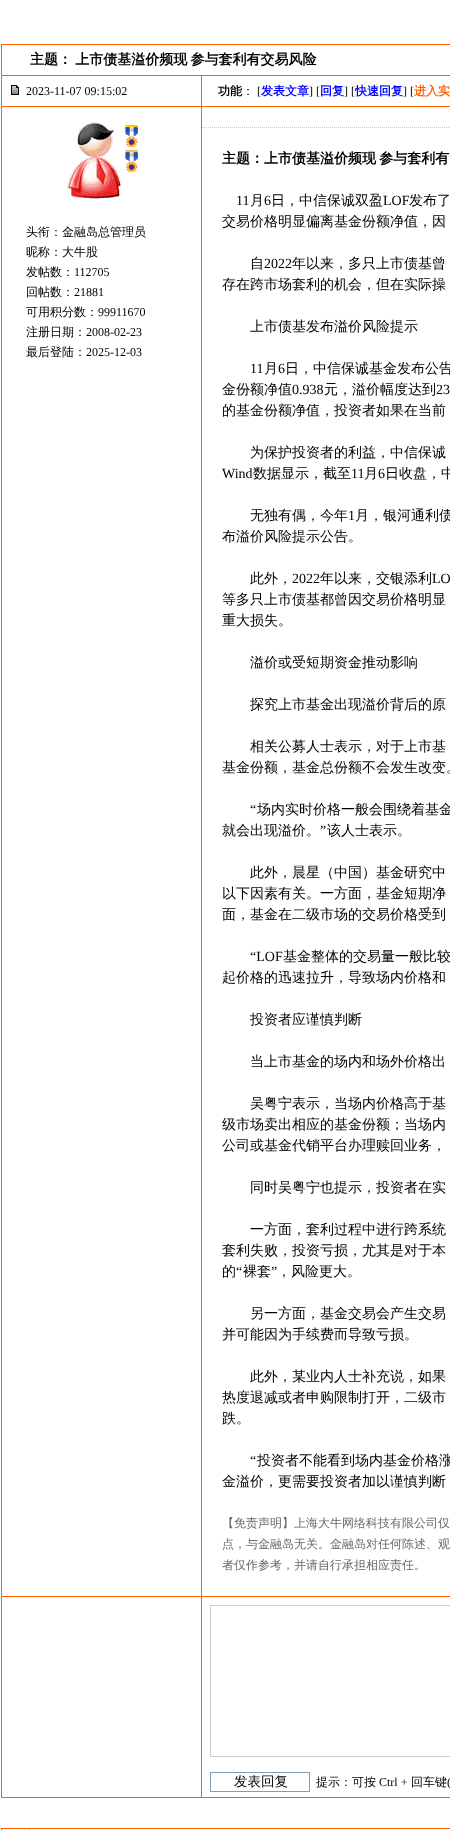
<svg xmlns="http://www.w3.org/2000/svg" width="450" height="1830">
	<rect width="100%" height="100%" fill="#FFFFFF" />
	<rect x="1" y="44" width="449" height="1754" fill="#FF6100" />
	<rect x="2" y="45" width="448" height="30" fill="#FFFFFF" />
	<text x="30" y="64" word-spacing="-1" font-family="WenQuanYi Zen Hei" font-size="14" font-weight="700" fill="#000000">主题： 上市债基溢价频现 参与套利有交易风险</text>
	<rect x="2" y="76" width="199" height="30" fill="#FFFFFF" />
	<image x="11" y="85" width="8" height="10" href="assets/img1.png" />
	<text x="26" y="95" font-family="Liberation Serif" font-size="12" fill="#000000">2023-11-07 09:15:02</text>
	<rect x="202" y="76" width="248" height="30" fill="#FFFFFF" />
	<text x="218" y="95" font-family="WenQuanYi Zen Hei" font-size="12" font-weight="700" fill="#000000">功能</text>
	<text x="242" y="95" font-family="WenQuanYi Zen Hei" font-size="12" font-weight="500" fill="#000000">：</text>
	<text x="257" y="95" font-family="Liberation Serif" font-size="12" fill="#000000">[</text>
	<text x="261" y="95" font-family="WenQuanYi Zen Hei" font-size="12" font-weight="700" fill="#0000FF">发表文章</text>
	<text x="309" y="95" font-family="Liberation Serif" font-size="12" fill="#000000">] [</text>
	<text x="320" y="95" font-family="WenQuanYi Zen Hei" font-size="12" font-weight="700" fill="#0000FF">回复</text>
	<text x="344" y="95" font-family="Liberation Serif" font-size="12" fill="#000000">] [</text>
	<text x="355" y="95" font-family="WenQuanYi Zen Hei" font-size="12" font-weight="700" fill="#0000FF">快速回复</text>
	<text x="403" y="95" font-family="Liberation Serif" font-size="12" fill="#000000">] [</text>
	<text x="414" y="95" font-family="WenQuanYi Zen Hei" font-size="12" font-weight="700" fill="#FF6100">进入实</text>
	<rect x="2" y="107" width="199" height="1489" fill="#FFFFFF" />
	<image x="67" y="122" width="71" height="77" href="assets/img2.png" />
	<g font-family="WenQuanYi Zen Hei" font-size="12" font-weight="500" fill="#000000">
		<text x="26" y="236">头衔：金融岛总管理员</text>
		<text x="26" y="256">昵称：大牛股</text>
		<text x="26" y="276">发帖数：</text>
	</g>
	<text x="74" y="276" font-family="Liberation Serif" font-size="12" fill="#000000">112705</text>
	<text x="26" y="296" font-family="WenQuanYi Zen Hei" font-size="12" font-weight="500" fill="#000000">回帖数：</text>
	<text x="74" y="296" font-family="Liberation Serif" font-size="12" fill="#000000">21881</text>
	<text x="26" y="316" font-family="WenQuanYi Zen Hei" font-size="12" font-weight="500" fill="#000000">可用积分数：</text>
	<text x="98" y="316" font-family="Liberation Serif" font-size="12" fill="#000000">99911670</text>
	<text x="26" y="336" font-family="WenQuanYi Zen Hei" font-size="12" font-weight="500" fill="#000000">注册日期：</text>
	<text x="86" y="336" font-family="Liberation Serif" font-size="12" fill="#000000">2008-02-23</text>
	<text x="26" y="356" font-family="WenQuanYi Zen Hei" font-size="12" font-weight="500" fill="#000000">最后登陆：</text>
	<text x="86" y="356" font-family="Liberation Serif" font-size="12" fill="#000000">2025-12-03</text>
	<rect x="202" y="107" width="248" height="1489" fill="#FFFFFF" />
	<path d="M202 127.5H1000" fill="none" stroke="#CCCCCC" stroke-dasharray="1 1" />
	<text x="222" y="163" word-spacing="-1" font-family="WenQuanYi Zen Hei" font-size="14" font-weight="700" fill="#000000">主题：上市债基溢价频现 参与套利有</text>
	<text x="236" y="205" font-family="Liberation Serif" font-size="14" fill="#000000">11</text>
	<text x="250" y="205" font-family="WenQuanYi Zen Hei" font-size="14" font-weight="500" fill="#000000">月</text>
	<text x="264" y="205" font-family="Liberation Serif" font-size="14" fill="#000000">6</text>
	<text x="271" y="205" font-family="WenQuanYi Zen Hei" font-size="14" font-weight="500" fill="#000000">日，中信保诚双盈</text>
	<text x="383" y="205" font-family="Liberation Serif" font-size="14" fill="#000000">LOF</text>
	<g font-family="WenQuanYi Zen Hei" font-size="14" font-weight="500" fill="#000000">
		<text x="409" y="205">发布了</text>
		<text x="222" y="226">交易价格明显偏离基金份额净值，因</text>
		<text x="250" y="268">自</text>
	</g>
	<text x="264" y="268" font-family="Liberation Serif" font-size="14" fill="#000000">2022</text>
	<g font-family="WenQuanYi Zen Hei" font-size="14" font-weight="500" fill="#000000">
		<text x="292" y="268">年以来，多只上市债基曾</text>
		<text x="222" y="289">存在跨市场套利的机会，但在实际操</text>
		<text x="250" y="331">上市债基发布溢价风险提示</text>
	</g>
	<text x="250" y="373" font-family="Liberation Serif" font-size="14" fill="#000000">11</text>
	<text x="264" y="373" font-family="WenQuanYi Zen Hei" font-size="14" font-weight="500" fill="#000000">月</text>
	<text x="278" y="373" font-family="Liberation Serif" font-size="14" fill="#000000">6</text>
	<g font-family="WenQuanYi Zen Hei" font-size="14" font-weight="500" fill="#000000">
		<text x="285" y="373">日，中信保诚基金发布公告</text>
		<text x="222" y="394">金份额净值</text>
	</g>
	<text x="292" y="394" font-family="Liberation Serif" font-size="14" fill="#000000">0.938</text>
	<text x="324" y="394" font-family="WenQuanYi Zen Hei" font-size="14" font-weight="500" fill="#000000">元，溢价幅度达到</text>
	<text x="436" y="394" font-family="Liberation Serif" font-size="14" fill="#000000">23</text>
	<g font-family="WenQuanYi Zen Hei" font-size="14" font-weight="500" fill="#000000">
		<text x="222" y="415">的基金份额净值，投资者如果在当前</text>
		<text x="250" y="457">为保护投资者的利益，中信保诚</text>
	</g>
	<text x="222" y="478" font-family="Liberation Serif" font-size="14" fill="#000000">Wind</text>
	<text x="253" y="478" font-family="WenQuanYi Zen Hei" font-size="14" font-weight="500" fill="#000000">数据显示，截至</text>
	<text x="351" y="478" font-family="Liberation Serif" font-size="14" fill="#000000">11</text>
	<text x="364" y="478" font-family="WenQuanYi Zen Hei" font-size="14" font-weight="500" fill="#000000">月</text>
	<text x="378" y="478" font-family="Liberation Serif" font-size="14" fill="#000000">6</text>
	<g font-family="WenQuanYi Zen Hei" font-size="14" font-weight="500" fill="#000000">
		<text x="385" y="478">日收盘，中</text>
		<text x="250" y="520">无独有偶，今年</text>
	</g>
	<text x="348" y="520" font-family="Liberation Serif" font-size="14" fill="#000000">1</text>
	<g font-family="WenQuanYi Zen Hei" font-size="14" font-weight="500" fill="#000000">
		<text x="355" y="520">月，银河通利债</text>
		<text x="222" y="541">布溢价风险提示公告。</text>
		<text x="250" y="583">此外，</text>
	</g>
	<text x="292" y="583" font-family="Liberation Serif" font-size="14" fill="#000000">2022</text>
	<text x="320" y="583" font-family="WenQuanYi Zen Hei" font-size="14" font-weight="500" fill="#000000">年以来，交银添利</text>
	<text x="432" y="583" font-family="Liberation Serif" font-size="14" fill="#000000">LO</text>
	<g font-family="WenQuanYi Zen Hei" font-size="14" font-weight="500" fill="#000000">
		<text x="222" y="604">等多只上市债基都曾因交易价格明显</text>
		<text x="222" y="625">重大损失。</text>
		<text x="250" y="667">溢价或受短期资金推动影响</text>
		<text x="250" y="709">探究上市基金出现溢价背后的原</text>
		<text x="250" y="751">相关公募人士表示，对于上市基</text>
		<text x="222" y="772">基金份额，基金总份额不会发生改变。</text>
	</g>
	<text x="250" y="814" font-family="Liberation Serif" font-size="14" fill="#000000">“</text>
	<g font-family="WenQuanYi Zen Hei" font-size="14" font-weight="500" fill="#000000">
		<text x="257" y="814">场内实时价格一般会围绕着基金</text>
		<text x="222" y="835">就会出现溢价。</text>
	</g>
	<text x="320" y="835" font-family="Liberation Serif" font-size="14" fill="#000000">”</text>
	<g font-family="WenQuanYi Zen Hei" font-size="14" font-weight="500" fill="#000000">
		<text x="327" y="835">该人士表示。</text>
		<text x="250" y="877">此外，晨星（中国）基金研究中</text>
		<text x="222" y="898">以下因素有关。一方面，基金短期净</text>
		<text x="222" y="919">面，基金在二级市场的交易价格受到</text>
	</g>
	<text x="250" y="961" font-family="Liberation Serif" font-size="14" fill="#000000">“LOF</text>
	<g font-family="WenQuanYi Zen Hei" font-size="14" font-weight="500" fill="#000000">
		<text x="283" y="961">基金整体的交易量一般比较</text>
		<text x="222" y="982">起价格的迅速拉升，导致场内价格和</text>
		<text x="250" y="1024">投资者应谨慎判断</text>
		<text x="250" y="1066">当上市基金的场内和场外价格出</text>
		<text x="250" y="1108">吴粤宁表示，当场内价格高于基</text>
		<text x="222" y="1129">级市场卖出相应的基金份额；当场内</text>
		<text x="222" y="1150">公司或基金代销平台办理赎回业务，</text>
		<text x="250" y="1192">同时吴粤宁也提示，投资者在实</text>
		<text x="250" y="1234">一方面，套利过程中进行跨系统</text>
		<text x="222" y="1255">套利失败，投资亏损，尤其是对于本</text>
		<text x="222" y="1276">的</text>
	</g>
	<text x="236" y="1276" font-family="Liberation Serif" font-size="14" fill="#000000">“</text>
	<text x="243" y="1276" font-family="WenQuanYi Zen Hei" font-size="14" font-weight="500" fill="#000000">裸套</text>
	<text x="271" y="1276" font-family="Liberation Serif" font-size="14" fill="#000000">”</text>
	<g font-family="WenQuanYi Zen Hei" font-size="14" font-weight="500" fill="#000000">
		<text x="277" y="1276">，风险更大。</text>
		<text x="250" y="1318">另一方面，基金交易会产生交易</text>
		<text x="222" y="1339">并可能因为手续费而导致亏损。</text>
		<text x="250" y="1381">此外，某业内人士补充说，如果</text>
		<text x="222" y="1402">热度退减或者申购限制打开，二级市</text>
		<text x="222" y="1423">跌。</text>
	</g>
	<text x="250" y="1465" font-family="Liberation Serif" font-size="14" fill="#000000">“</text>
	<g font-family="WenQuanYi Zen Hei" font-size="14" font-weight="500" fill="#000000">
		<text x="257" y="1465">投资者不能看到场内基金价格涨</text>
		<text x="222" y="1486">金溢价，更需要投资者加以谨慎判断</text>
	</g>
	<g font-family="WenQuanYi Zen Hei" font-size="12" font-weight="500" fill="#696969">
		<text x="222" y="1527">【免责声明】上海大牛网络科技有限公司仅</text>
		<text x="222" y="1548">点，与金融岛无关。金融岛对任何陈述、观</text>
		<text x="222" y="1569">者仅作参考，并请自行承担相应责任。</text>
	</g>
	<rect x="2" y="1597" width="199" height="200" fill="#FFFFFF" />
	<rect x="202" y="1597" width="248" height="200" fill="#FFFFFF" />
	<rect x="210.5" y="1605.5" width="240" height="151" fill="none" stroke="#CCCCCC" />
	<rect x="210.5" y="1772.5" width="99" height="19" fill="none" stroke="#7F9DB9" />
	<text x="234" y="1786" font-family="WenQuanYi Zen Hei" font-size="13.5" font-weight="500" fill="#000000">发表回复</text>
	<text x="316" y="1786" font-family="WenQuanYi Zen Hei" font-size="12" font-weight="500" fill="#000000">提示：可按</text>
	<text x="379" y="1786" font-family="Liberation Serif" font-size="12" fill="#000000">Ctrl +</text>
	<text x="411" y="1786" font-family="WenQuanYi Zen Hei" font-size="12" font-weight="500" fill="#000000">回车键</text>
	<text x="447" y="1786" font-family="Liberation Serif" font-size="12" fill="#000000">(</text>
	<rect x="1.5" y="1828.5" width="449" height="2" fill="none" stroke="#FF6100" />
	<rect x="29" y="1829" width="1" height="1" fill="#CECAA6" />
</svg>
